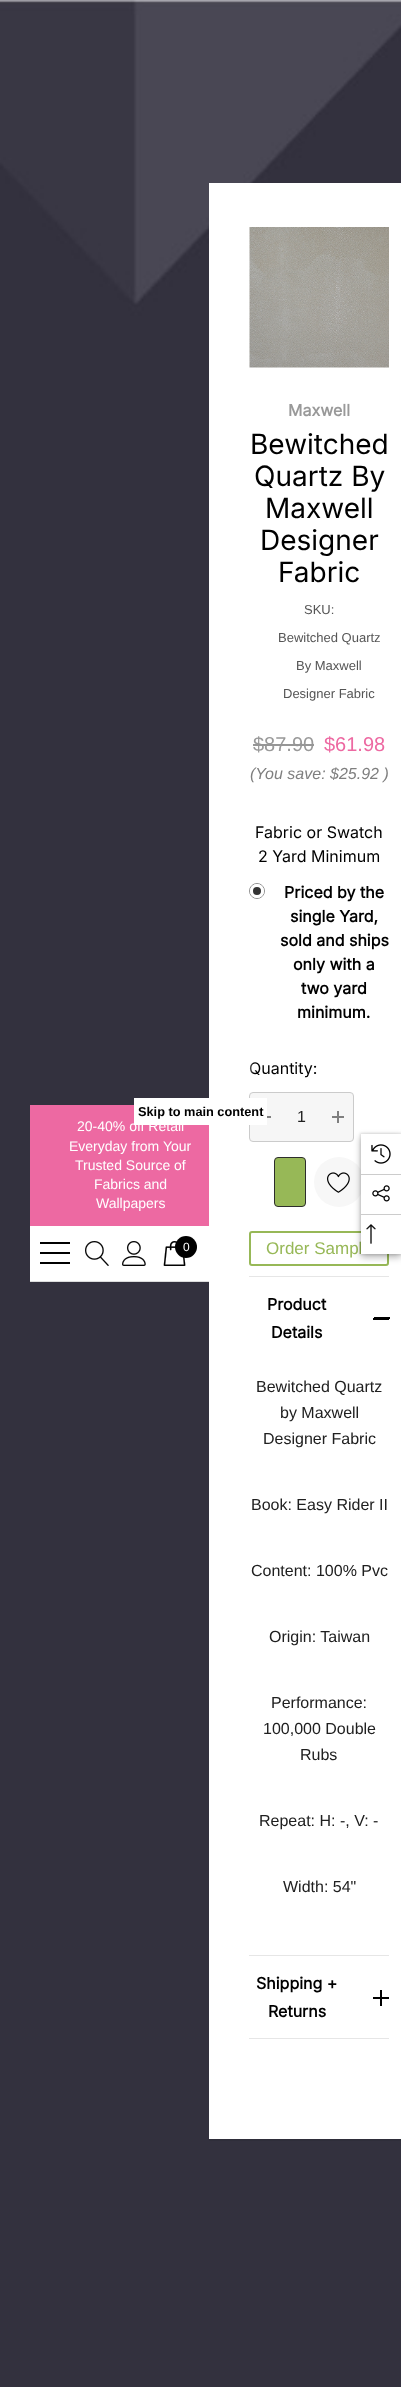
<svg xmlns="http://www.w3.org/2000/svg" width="401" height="2387">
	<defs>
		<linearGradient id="g1" gradientUnits="userSpaceOnUse" x1="239" y1="1066" x2="253" y2="1066"><stop offset="0" stop-color="#FFFFFF" /><stop offset="1" stop-color="#FFFFFF" stop-opacity="0.1" /></linearGradient>
	</defs>
	<rect width="100%" height="100%" fill="#FFFFFF" />
	<image x="0" y="0" width="401" height="2387" href="assets/img1.png" />
	<rect x="209" y="183" width="192" height="1956" fill="#FFFFFF" />
	<rect x="249.5" y="1092.5" width="104" height="49" rx="3.5" fill="#F6F6F6" stroke="#CBCBCB" />
	<rect x="259" y="1116" width="12" height="2" fill="#7F7F7F" />
	<rect x="30" y="1105" width="179" height="121" fill="#ED69A2" />
	<rect x="134" y="1098" width="133" height="27" fill="#FFFFFF" />
	<text x="138" y="1116" font-family="Liberation Sans" font-size="12.75" font-weight="700" fill="#000000">Skip to main content</text>
	<rect x="209" y="2139" width="192" height="2" fill="#2F2E3A" />
	<image x="249" y="227" width="140" height="141" href="assets/img2.png" />
	<text x="288" y="416" font-family="Inter" font-size="16" font-weight="700" fill="#999999">Maxwell</text>
	<g font-family="Inter" font-size="28" fill="#000000">
		<text x="250" y="454">Bewitched</text>
		<text x="254" y="486">Quartz By</text>
		<text x="265" y="518">Maxwell</text>
		<text x="260" y="550">Designer</text>
		<text x="278" y="582">Fabric</text>
	</g>
	<g font-family="Liberation Sans" font-size="13" fill="#555555">
		<text x="304" y="614">SKU:</text>
		<text x="278" y="642">Bewitched Quartz</text>
		<text x="296" y="670">By Maxwell</text>
		<text x="283" y="698">Designer Fabric</text>
	</g>
	<text x="253" y="751" font-family="Liberation Sans" font-size="20" fill="#999999">$87.90</text>
	<rect x="253" y="744" width="61" height="2" fill="#969696" />
	<text x="324" y="751" font-family="Liberation Sans" font-size="20" fill="#ED69A2">$61.98</text>
	<text x="250" y="779" font-family="Liberation Sans" font-size="16" font-style="italic" fill="#7F7F7F">(You save: $25.92 )</text>
	<g font-family="Inter" font-size="16" fill="#000000">
		<text x="255" y="838">Fabric or Swatch</text>
		<text x="258" y="862">2 Yard Minimum</text>
	</g>
	<circle cx="257" cy="891" r="7.5" fill="none" stroke="#8F8F8F" />
	<circle cx="257" cy="891" r="5.5" fill="#333333" stroke="#FFFFFF" stroke-width="3" />
	<g font-family="Inter" font-size="16" font-weight="700" fill="#000000">
		<text x="284" y="898">Priced by the</text>
		<text x="290" y="922">single Yard,</text>
		<text x="280" y="946">sold and ships</text>
		<text x="293" y="970">only with a</text>
		<text x="301" y="994">two yard</text>
		<text x="297" y="1018">minimum.</text>
	</g>
	<text x="249" y="1074" font-family="Inter" font-size="16" fill="#000000">Quantity:</text>
	<text x="297" y="1122" font-family="Liberation Sans" font-size="16" fill="#202020">1</text>
	<rect x="332" y="1116" width="12" height="2" fill="#7F7F7F" />
	<rect x="337" y="1111" width="2" height="12" fill="#7F7F7F" />
	<rect x="274.5" y="1157.5" width="31" height="49" rx="3.5" fill="#97B857" stroke="#2D2D2D" />
	<circle cx="339" cy="1182" r="25" fill="#F7F7F7" />
	<image x="327" y="1172" width="23" height="21" href="assets/img3.png" />
	<rect x="250" y="1062" width="3" height="12" fill="url(#g1)" />
	<rect x="250" y="1232" width="138" height="33" rx="2" fill="none" stroke="#97B857" stroke-width="2" />
	<text x="266" y="1254" font-family="Liberation Sans" font-size="17" fill="#97B857">Order Sampl</text>
	<rect x="249" y="1276" width="140" height="1" fill="#E6E6E6" />
	<text x="267" y="1310" font-family="Inter" font-size="16" font-weight="700" fill="#000000">Product</text>
	<rect x="374" y="1317" width="16" height="2" fill="#000000" />
	<rect x="373" y="1318" width="16" height="2" fill="#000000" />
	<text x="271" y="1338" font-family="Inter" font-size="16" font-weight="700" fill="#000000">Details</text>
	<g font-family="Liberation Sans" font-size="16" fill="#202020">
		<text x="256" y="1392">Bewitched Quartz</text>
		<text x="280" y="1418">by Maxwell</text>
		<text x="263" y="1444">Designer Fabric</text>
		<text x="251" y="1510">Book: Easy Rider II</text>
		<text x="251" y="1576">Content: 100% Pvc</text>
		<text x="269" y="1642">Origin: Taiwan</text>
		<text x="271" y="1708">Performance:</text>
		<text x="263" y="1734">100,000 Double</text>
		<text x="300" y="1760">Rubs</text>
		<text x="259" y="1826">Repeat: H: -, V: -</text>
		<text x="283" y="1892">Width: 54"</text>
	</g>
	<rect x="249" y="1955" width="140" height="1" fill="#E6E6E6" />
	<rect x="249" y="2038" width="140" height="1" fill="#E6E6E6" />
	<text x="256" y="1989" font-family="Inter" font-size="16" font-weight="700" fill="#000000">Shipping +</text>
	<rect x="380" y="1990" width="2" height="16" fill="#000000" />
	<rect x="373" y="1997" width="16" height="2" fill="#000000" />
	<text x="268" y="2017" font-family="Inter" font-size="16" font-weight="700" fill="#000000">Returns</text>
	<rect x="30" y="1226" width="179" height="55" fill="#FFFFFF" />
	<rect x="30" y="1281" width="179" height="1" fill="#DDDDDD" />
	<g font-family="Liberation Sans" font-size="14" fill="#FFFFFF">
		<text x="77" y="1131">20-40% off Retail</text>
		<text x="69" y="1151">Everyday from Your</text>
		<text x="75" y="1170">Trusted Source of</text>
		<text x="94" y="1189">Fabrics and</text>
		<text x="96" y="1208">Wallpapers</text>
	</g>
	<rect x="40" y="1252" width="30" height="2" fill="#000000" />
	<rect x="40" y="1242" width="30" height="2" fill="#000000" />
	<rect x="40" y="1262" width="30" height="2" fill="#000000" />
	<image x="85" y="1241" width="24" height="25" href="assets/img4.png" />
	<image x="122" y="1241" width="24" height="25" href="assets/img5.png" />
	<image x="163" y="1241" width="23" height="25" href="assets/img6.png" />
	<circle cx="186" cy="1247" r="11" fill="#000000" />
	<text x="183" y="1251" font-family="Liberation Sans" font-size="12" fill="#FFFFFF">0</text>
	<rect x="361" y="1137" width="40" height="120" fill="#000000" fill-opacity="0.3" filter="blur(3.5px)" />
	<rect x="360" y="1133" width="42" height="122" fill="#000000" fill-opacity="0.1" filter="blur(1px)" />
	<rect x="361" y="1134" width="40" height="120" fill="#FFFFFF" />
	<image x="371" y="1144" width="20" height="20" href="assets/img7.png" />
	<rect x="361" y="1174" width="40" height="1" fill="#CCCCCC" />
	<image x="372" y="1185" width="18" height="17" href="assets/img8.png" />
	<rect x="361" y="1214" width="40" height="1" fill="#CCCCCC" />
	<image x="366" y="1224" width="10" height="20" href="assets/img9.png" />
</svg>
